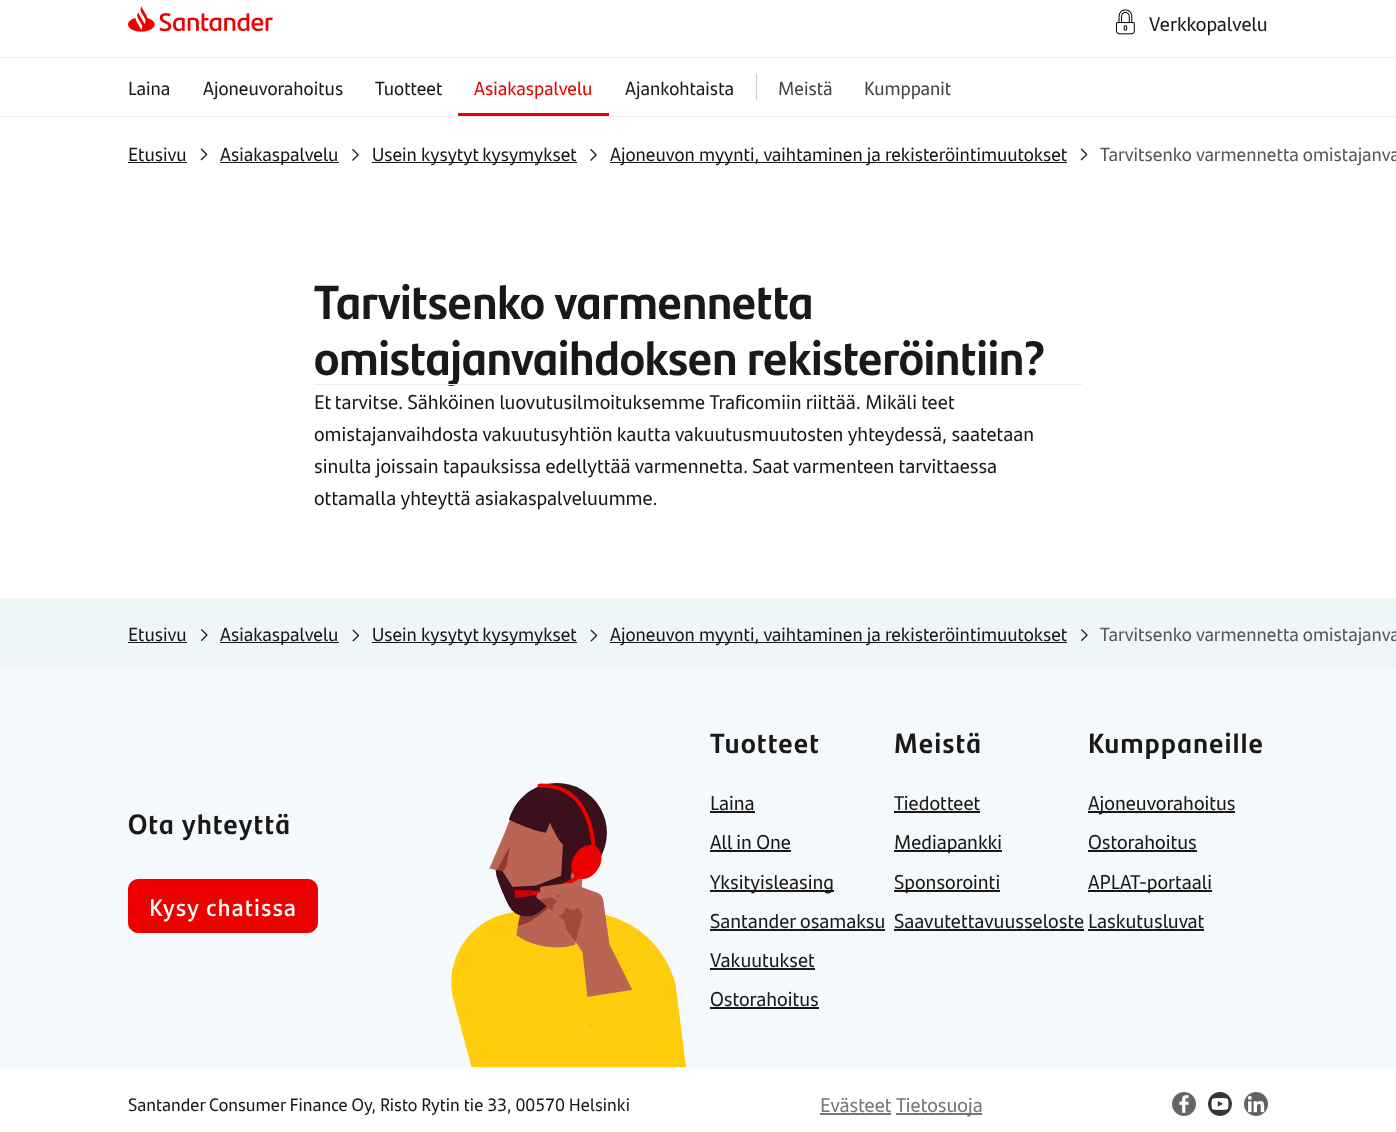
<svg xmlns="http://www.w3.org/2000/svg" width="1396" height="1132">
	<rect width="100%" height="100%" fill="#FFFFFF" />
	<rect x="0" y="57" width="1396" height="1" fill="#ECECEC" />
	<image x="128" y="6" width="145" height="26" href="assets/img1.png" />
	<image x="1116" y="9" width="19" height="26" href="assets/img2.png" />
	<text x="1149" y="31" font-family="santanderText" font-size="20" fill="#191919">Verkkopalvelu</text>
	<rect x="0" y="116" width="1396" height="1" fill="#ECECEC" />
	<g font-family="santanderText" font-size="19" fill="#191919">
		<text x="128" y="95">Laina</text>
		<text x="203" y="95">Ajoneuvorahoitus</text>
		<text x="375" y="95">Tuotteet</text>
	</g>
	<text x="474" y="95" font-family="santanderText" font-size="19" fill="#EC0000">Asiakaspalvelu</text>
	<rect x="458" y="113" width="151" height="3" fill="#EC0000" />
	<text x="625" y="95" font-family="santanderText" font-size="19" fill="#191919">Ajankohtaista</text>
	<rect x="756" y="74" width="1" height="26" fill="#CCCCCC" />
	<g font-family="santanderText" font-size="19" fill="#444444">
		<text x="778" y="95">Meistä</text>
		<text x="864" y="95">Kumppanit</text>
	</g>
	<text x="128" y="161" font-family="santanderText" font-size="19" fill="#191919">Etusivu</text>
	<rect x="128" y="162" width="59" height="1" fill="#191919" />
	<image x="200" y="148" width="8" height="13" href="assets/img3.png" />
	<rect x="220" y="162" width="119" height="1" fill="#191919" />
	<text x="220" y="161" font-family="santanderText" font-size="19" fill="#191919">Asiakaspalvelu</text>
	<image x="352" y="149" width="7" height="12" href="assets/img4.png" />
	<rect x="372" y="162" width="205" height="1" fill="#191919" />
	<text x="372" y="161" font-family="santanderText" font-size="19" fill="#191919">Usein kysytyt kysymykset</text>
	<image x="590" y="149" width="7" height="12" href="assets/img5.png" />
	<rect x="610" y="162" width="457" height="1" fill="#191919" />
	<text x="610" y="161" font-family="santanderText" font-size="19" fill="#191919">Ajoneuvon myynti, vaihtaminen ja rekisteröintimuutokset</text>
	<image x="1080" y="148" width="8" height="13" href="assets/img6.png" />
	<text x="1100" y="161" font-family="santanderText" font-size="19" fill="#575757">Tarvitsenko varmennetta omistajanva</text>
	<g font-family="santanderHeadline" font-size="48" font-weight="700" fill="#191919">
		<text x="314" y="319">Tarvitsenko varmennetta</text>
		<text x="314" y="375">omistajanvaihdoksen rekisteröintiin?</text>
	</g>
	<rect x="314" y="384" width="768" height="1" fill="#ECECEC" />
	<g font-family="santanderText" font-size="20" fill="#191919">
		<text x="314" y="409">Et tarvitse. Sähköinen luovutusilmoituksemme Traficomiin riittää. Mikäli teet</text>
		<text x="314" y="441">omistajanvaihdosta vakuutusyhtiön kautta vakuutusmuutosten yhteydessä, saatetaan</text>
		<text x="314" y="473">sinulta joissain tapauksissa edellyttää varmennetta. Saat varmenteen tarvittaessa</text>
		<text x="314" y="505">ottamalla yhteyttä asiakaspalveluumme.</text>
	</g>
	<rect x="0" y="598" width="1396" height="70" fill="#EEF6F8" />
	<text x="128" y="641" font-family="santanderText" font-size="19" fill="#191919">Etusivu</text>
	<rect x="128" y="642" width="59" height="1" fill="#191919" />
	<image x="201" y="629" width="7" height="12" href="assets/img7.png" />
	<rect x="220" y="642" width="119" height="1" fill="#191919" />
	<text x="220" y="641" font-family="santanderText" font-size="19" fill="#191919">Asiakaspalvelu</text>
	<image x="352" y="629" width="7" height="13" href="assets/img8.png" />
	<rect x="372" y="642" width="205" height="1" fill="#191919" />
	<text x="372" y="641" font-family="santanderText" font-size="19" fill="#191919">Usein kysytyt kysymykset</text>
	<image x="590" y="629" width="8" height="13" href="assets/img9.png" />
	<rect x="610" y="642" width="457" height="1" fill="#191919" />
	<text x="610" y="641" font-family="santanderText" font-size="19" fill="#191919">Ajoneuvon myynti, vaihtaminen ja rekisteröintimuutokset</text>
	<image x="1081" y="629" width="7" height="12" href="assets/img10.png" />
	<text x="1100" y="641" font-family="santanderText" font-size="19" fill="#575757">Tarvitsenko varmennetta omistajanva</text>
	<rect x="0" y="668" width="1396" height="400" fill="#F5F9FB" />
	<text x="128" y="834" font-family="santanderHeadline" font-size="28" font-weight="700" letter-spacing="1.4" fill="#191919">Ota yhteyttä</text>
	<rect x="128.5" y="879.5" width="189" height="53" rx="9.5" fill="#EC0000" stroke="#EC0000" />
	<text x="149" y="916" font-family="santanderText" font-size="24" font-weight="600" letter-spacing="1" fill="#FFFFFF">Kysy chatissa</text>
	<image x="451" y="783" width="235" height="285" href="assets/img11.png" />
	<text x="710" y="753" font-family="santanderHeadline" font-size="28" font-weight="700" letter-spacing="1.4" fill="#191919">Tuotteet</text>
	<text x="710" y="810" font-family="santanderText" font-size="20" fill="#191919">Laina</text>
	<rect x="710" y="811" width="45" height="2" fill="#191919" />
	<text x="710" y="849" font-family="santanderText" font-size="20" fill="#191919">All in One</text>
	<rect x="710" y="850" width="81" height="2" fill="#191919" />
	<rect x="710" y="890" width="124" height="2" fill="#191919" />
	<g font-family="santanderText" font-size="20" fill="#191919">
		<text x="710" y="889">Yksityisleasing</text>
		<text x="710" y="928">Santander osamaksu</text>
	</g>
	<rect x="710" y="929" width="175" height="2" fill="#191919" />
	<text x="710" y="967" font-family="santanderText" font-size="20" fill="#191919">Vakuutukset</text>
	<rect x="710" y="968" width="105" height="2" fill="#191919" />
	<text x="710" y="1006" font-family="santanderText" font-size="20" fill="#191919">Ostorahoitus</text>
	<rect x="710" y="1007" width="109" height="2" fill="#191919" />
	<text x="894" y="753" font-family="santanderHeadline" font-size="28" font-weight="700" letter-spacing="1.4" fill="#191919">Meistä</text>
	<text x="894" y="810" font-family="santanderText" font-size="20" fill="#191919">Tiedotteet</text>
	<rect x="894" y="811" width="86" height="2" fill="#191919" />
	<rect x="894" y="850" width="108" height="2" fill="#191919" />
	<text x="894" y="849" font-family="santanderText" font-size="20" fill="#191919">Mediapankki</text>
	<rect x="894" y="890" width="106" height="2" fill="#191919" />
	<g font-family="santanderText" font-size="20" fill="#191919">
		<text x="894" y="889">Sponsorointi</text>
		<text x="894" y="928">Saavutettavuusseloste</text>
	</g>
	<rect x="894" y="929" width="190" height="2" fill="#191919" />
	<text x="1088" y="753" font-family="santanderHeadline" font-size="28" font-weight="700" letter-spacing="1.4" fill="#191919">Kumppaneille</text>
	<rect x="1088" y="811" width="147" height="2" fill="#191919" />
	<g font-family="santanderText" font-size="20" fill="#191919">
		<text x="1088" y="810">Ajoneuvorahoitus</text>
		<text x="1088" y="849">Ostorahoitus</text>
	</g>
	<rect x="1088" y="850" width="109" height="2" fill="#191919" />
	<rect x="1088" y="890" width="124" height="2" fill="#191919" />
	<g font-family="santanderText" font-size="20" fill="#191919">
		<text x="1088" y="889">APLAT-portaali</text>
		<text x="1088" y="928">Laskutusluvat</text>
	</g>
	<rect x="1088" y="929" width="116" height="2" fill="#191919" />
	<text x="128" y="1111" font-family="santanderText" font-size="18" fill="#191919">Santander Consumer Finance Oy, Risto Rytin tie 33, 00570 Helsinki</text>
	<text x="820" y="1112" font-family="santanderText" font-size="20" fill="#767676">Evästeet</text>
	<rect x="820" y="1113" width="71" height="2" fill="#767676" />
	<rect x="896" y="1113" width="86" height="2" fill="#767676" />
	<text x="896" y="1112" font-family="santanderText" font-size="20" fill="#767676">Tietosuoja</text>
	<image x="1172" y="1092" width="24" height="24" href="assets/img12.png" />
	<image x="1208" y="1092" width="24" height="24" href="assets/img13.png" />
	<image x="1244" y="1092" width="24" height="24" href="assets/img14.png" />
</svg>
